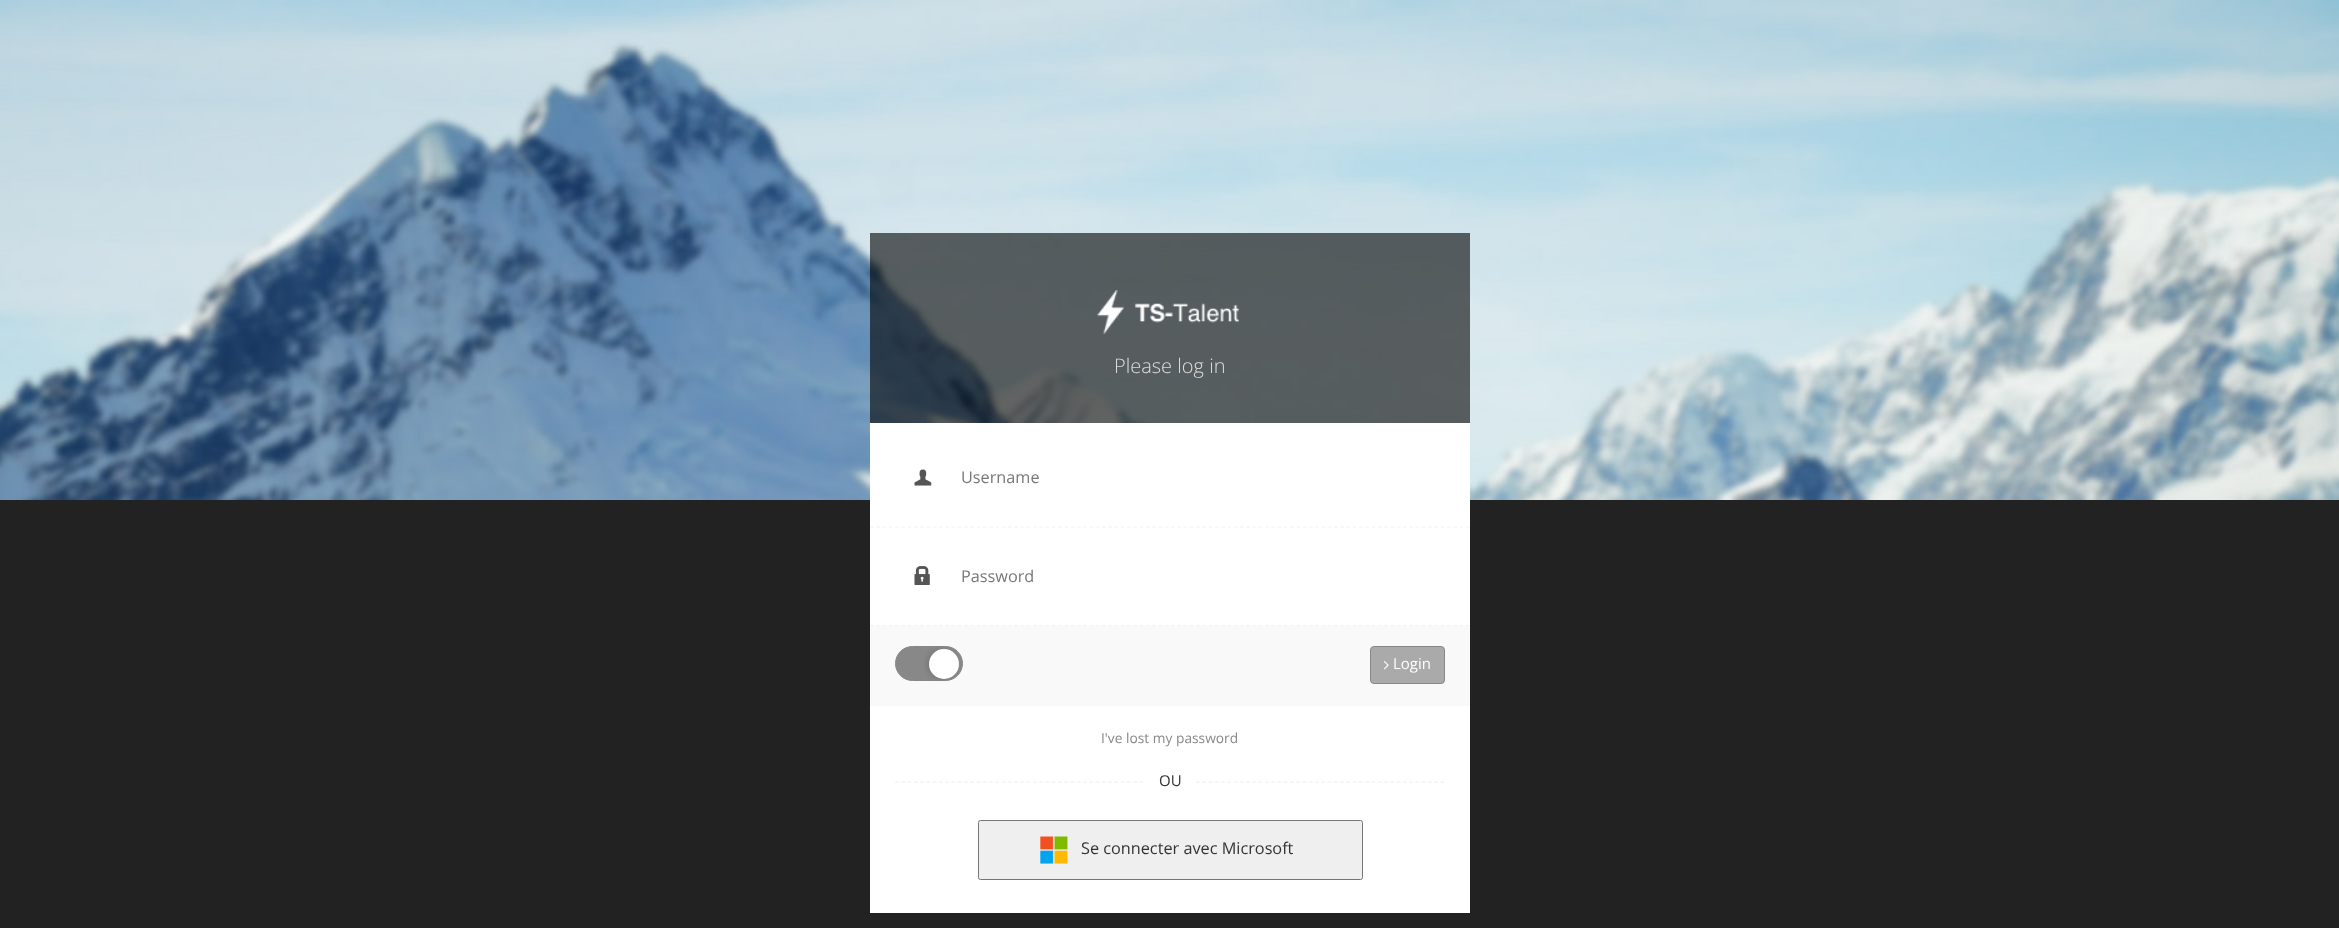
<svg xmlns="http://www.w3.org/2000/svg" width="2339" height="928">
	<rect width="100%" height="100%" fill="#222222" />
	<image x="0" y="0" width="2339" height="500" href="assets/img1.png" />
	<rect x="870" y="233" width="600" height="190" fill="#000000" fill-opacity="0.6" />
	<image x="1097" y="289" width="142" height="45" href="assets/img2.png" />
	<text x="1114" y="373" font-family="Open Sans" font-size="20" font-weight="300" fill="#DDDDDD">Please log in</text>
	<rect x="870" y="423" width="600" height="490" fill="#FFFFFF" />
	<path d="M870 527H1470" fill="none" stroke="#F2F2F2" stroke-width="1.2" stroke-dasharray="3.75 2.52" />
	<image x="914" y="469" width="18" height="17" href="assets/img3.png" />
	<text x="961" y="483" font-family="Open Sans" font-size="16.25" fill="#777777">Username</text>
	<path d="M870 625.5H1470" fill="none" stroke="#F2F2F2" stroke-width="1.2" stroke-dasharray="3.75 2.52" />
	<image x="914" y="566" width="16" height="19" href="assets/img4.png" />
	<text x="961" y="582" font-family="Open Sans" font-size="16.25" fill="#777777">Password</text>
	<rect x="870" y="626" width="600" height="80" fill="#F9F9F9" />
	<rect x="895.5" y="646.5" width="67" height="34" rx="17" fill="#888888" stroke="#888888" />
	<rect x="926" y="649" width="30" height="30" rx="15" fill="#000000" fill-opacity="0.1" filter="blur(2px)" />
	<circle cx="944" cy="664" r="15" fill="#FFFFFF" />
	<rect x="1370.5" y="646.5" width="74" height="37" rx="3.5" fill="#AAAAAA" stroke="#888888" />
	<image x="1384" y="661" width="5" height="9" href="assets/img5.png" />
	<text x="1393" y="669" font-family="Open Sans" font-size="15" fill="#FFFFFF">Login</text>
	<text x="1101" y="743" font-family="Open Sans" font-size="13.75" fill="#888888">I've lost my password</text>
	<path d="M895 782H1445" fill="none" stroke="#EAEDF1" stroke-width="1.2" stroke-dasharray="3.75 2.52" />
	<rect x="1146" y="781" width="48" height="2" fill="#FFFFFF" />
	<text x="1159" y="786" font-family="Open Sans" font-size="15" fill="#333333">OU</text>
	<rect x="978.5" y="820.5" width="384" height="59" rx="2" fill="#EFEFEF" stroke="#767676" />
	<image x="1040" y="836" width="28" height="28" href="assets/img6.png" />
	<text x="1081" y="854" font-family="Open Sans" font-size="16.25" fill="#333333">Se connecter avec Microsoft</text>
</svg>
